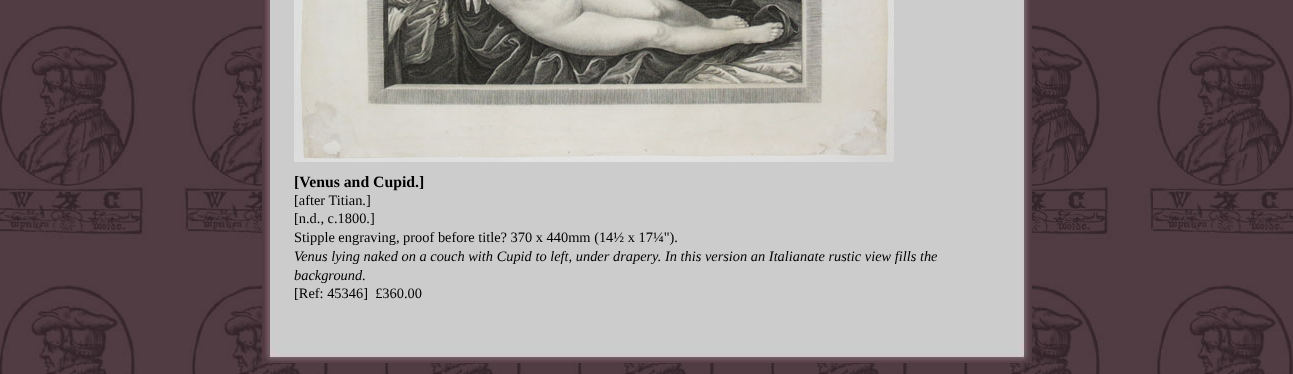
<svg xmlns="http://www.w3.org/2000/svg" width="1293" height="374">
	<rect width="100%" height="100%" fill="#FFFFFF" />
	<image x="0" y="0" width="1293" height="374" href="assets/img1.png" />
	<image x="262" y="0" width="770" height="363" href="assets/img2.png" />
	<image x="294" y="0" width="600" height="162" href="assets/img3.png" />
	<text x="294" y="187" font-family="Liberation Serif" font-size="15.75" font-weight="700" fill="#000000">[Venus and Cupid.]</text>
	<g font-family="Liberation Serif" font-size="14.4" fill="#000000">
		<text x="294" y="205">[after Titian.]</text>
		<text x="294" y="223">[n.d., c.1800.]</text>
		<text x="294" y="242">Stipple engraving, proof before title? 370 x 440mm (14½ x 17¼").</text>
	</g>
	<g font-family="Liberation Serif" font-size="14.4" font-style="italic" fill="#000000">
		<text x="294" y="261">Venus lying naked on a couch with Cupid to left, under drapery. In this version an Italianate rustic view fills the</text>
		<text x="294" y="280">background.</text>
	</g>
	<text x="294" y="298" font-family="Liberation Serif" font-size="14.4" fill="#000000" xml:space="preserve">[Ref: 45346]  £360.00</text>
	<image x="262" y="345" width="768" height="18" href="assets/img4.png" />
</svg>
